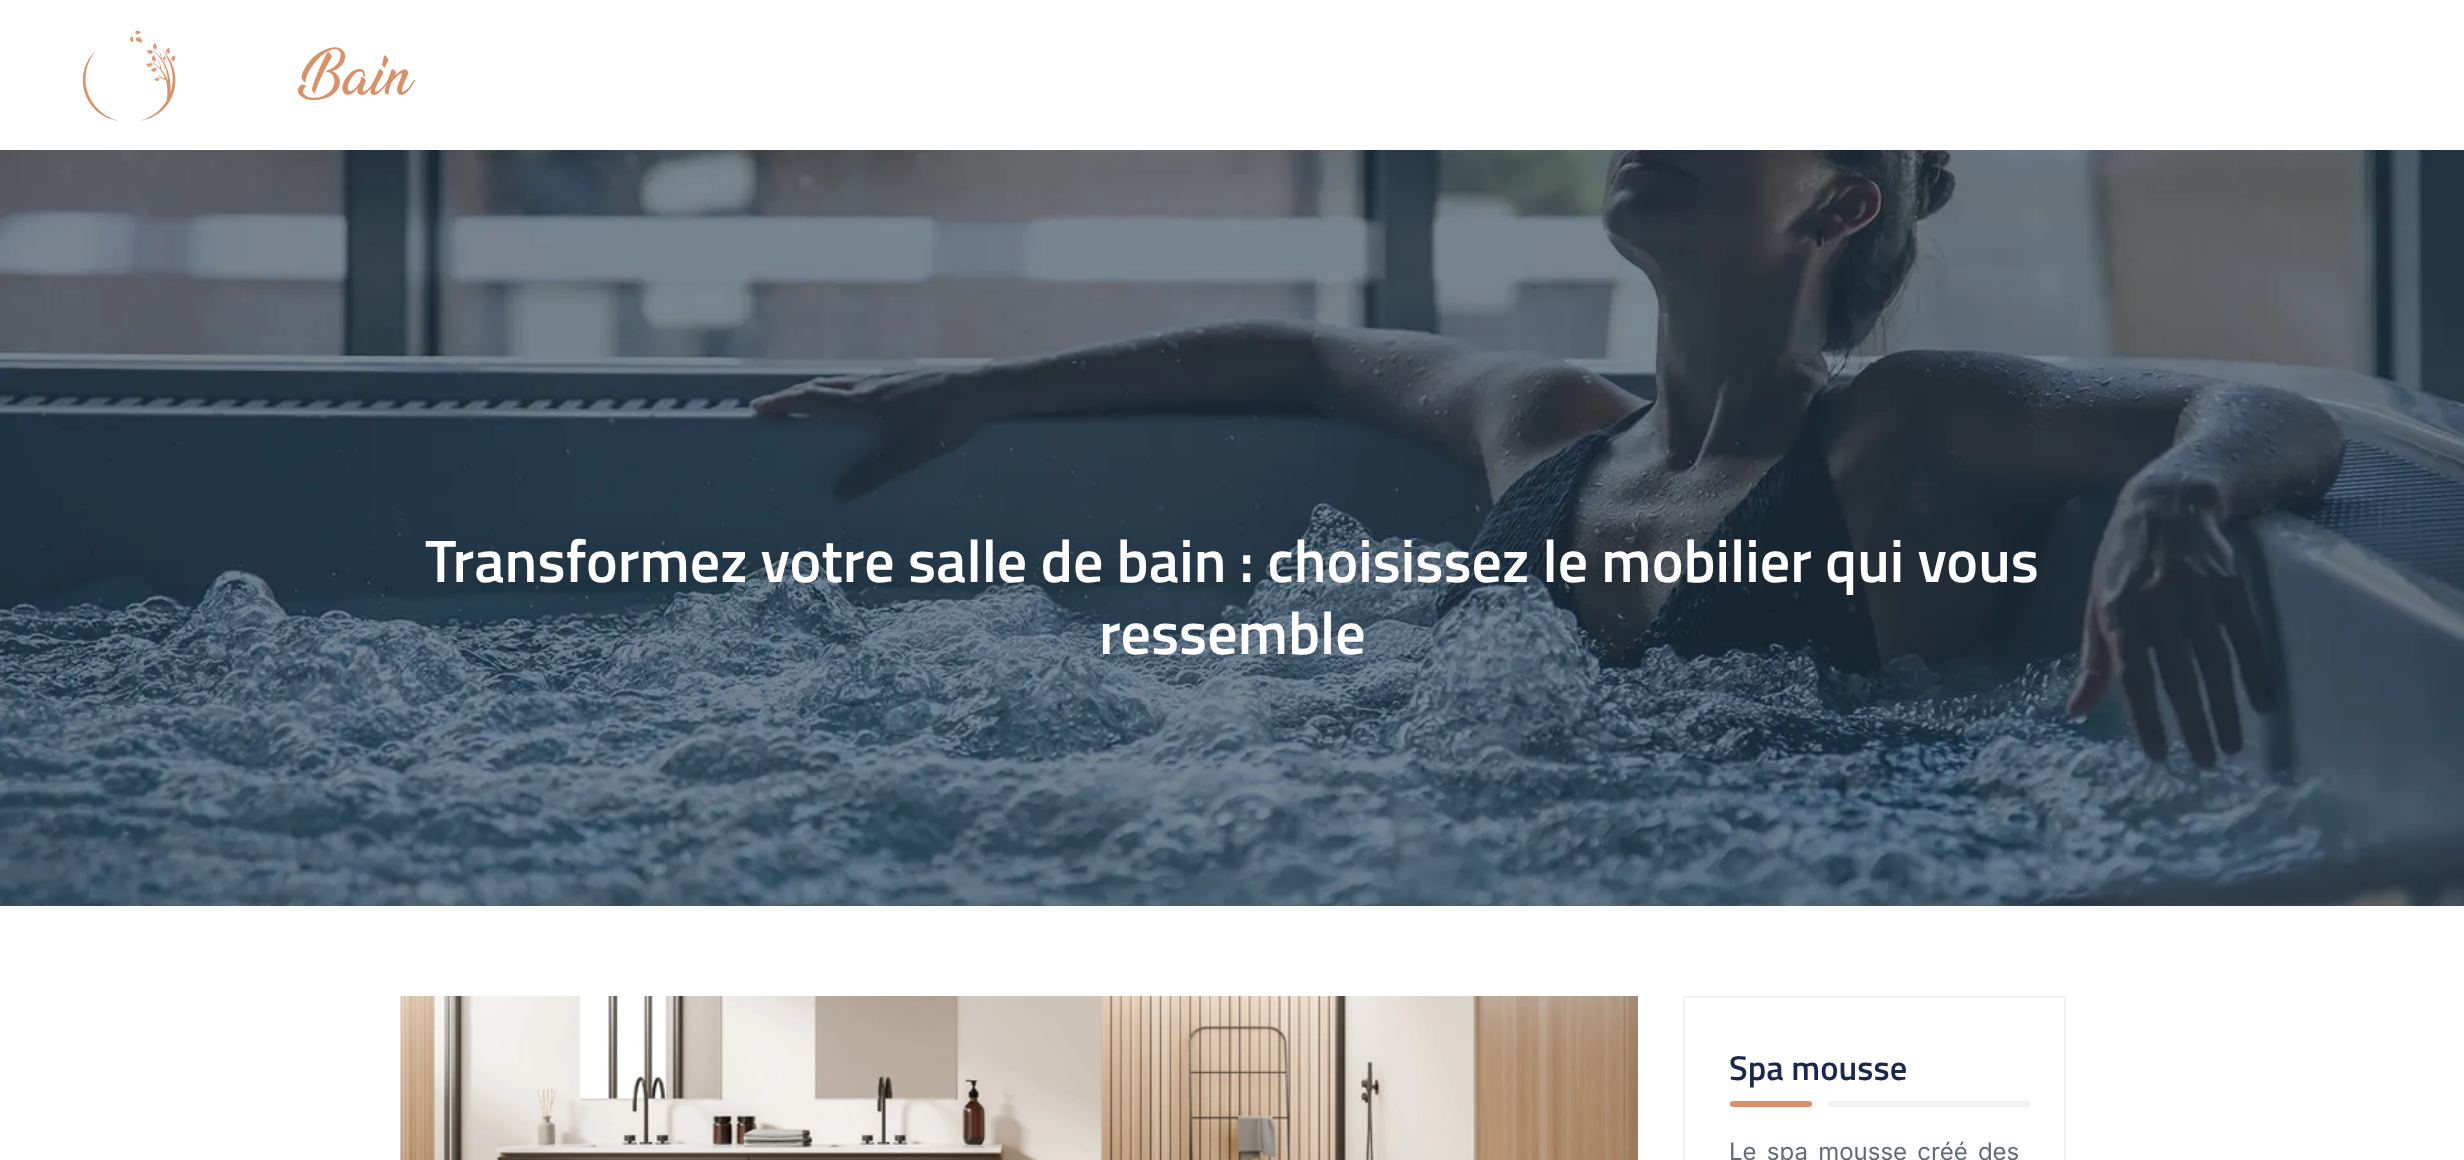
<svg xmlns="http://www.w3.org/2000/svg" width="2464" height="1160">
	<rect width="100%" height="100%" fill="#FFFFFF" />
	<image x="82" y="30" width="334" height="91" href="assets/img1.png" />
	<image x="0" y="150" width="2464" height="756" href="assets/img2.png" />
	<g font-family="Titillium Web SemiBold" font-size="60" font-weight="600" fill="#FFFFFF">
		<text x="425" y="582">Transformez votre salle de bain : choisissez le mobilier qui vous</text>
		<text x="1099" y="654">ressemble</text>
	</g>
	<image x="400" y="996" width="1238" height="164" href="assets/img3.png" />
	<rect x="1684" y="997" width="381" height="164" fill="none" stroke="#EFF2F3" stroke-width="2" />
	<text x="1729" y="1080" font-family="Titillium Web SemiBold" font-size="34.5" font-weight="600" fill="#1A284F">Spa mousse</text>
	<rect x="1730" y="1101" width="82" height="6" rx="3" fill="#D9916A" />
	<rect x="1827" y="1101" width="203" height="6" rx="3" fill="#F2F2F2" />
	<text x="1729" y="1160" word-spacing="3.5" font-family="Inter" font-size="24" fill="#626B72">Le spa mousse créé des</text>
</svg>
